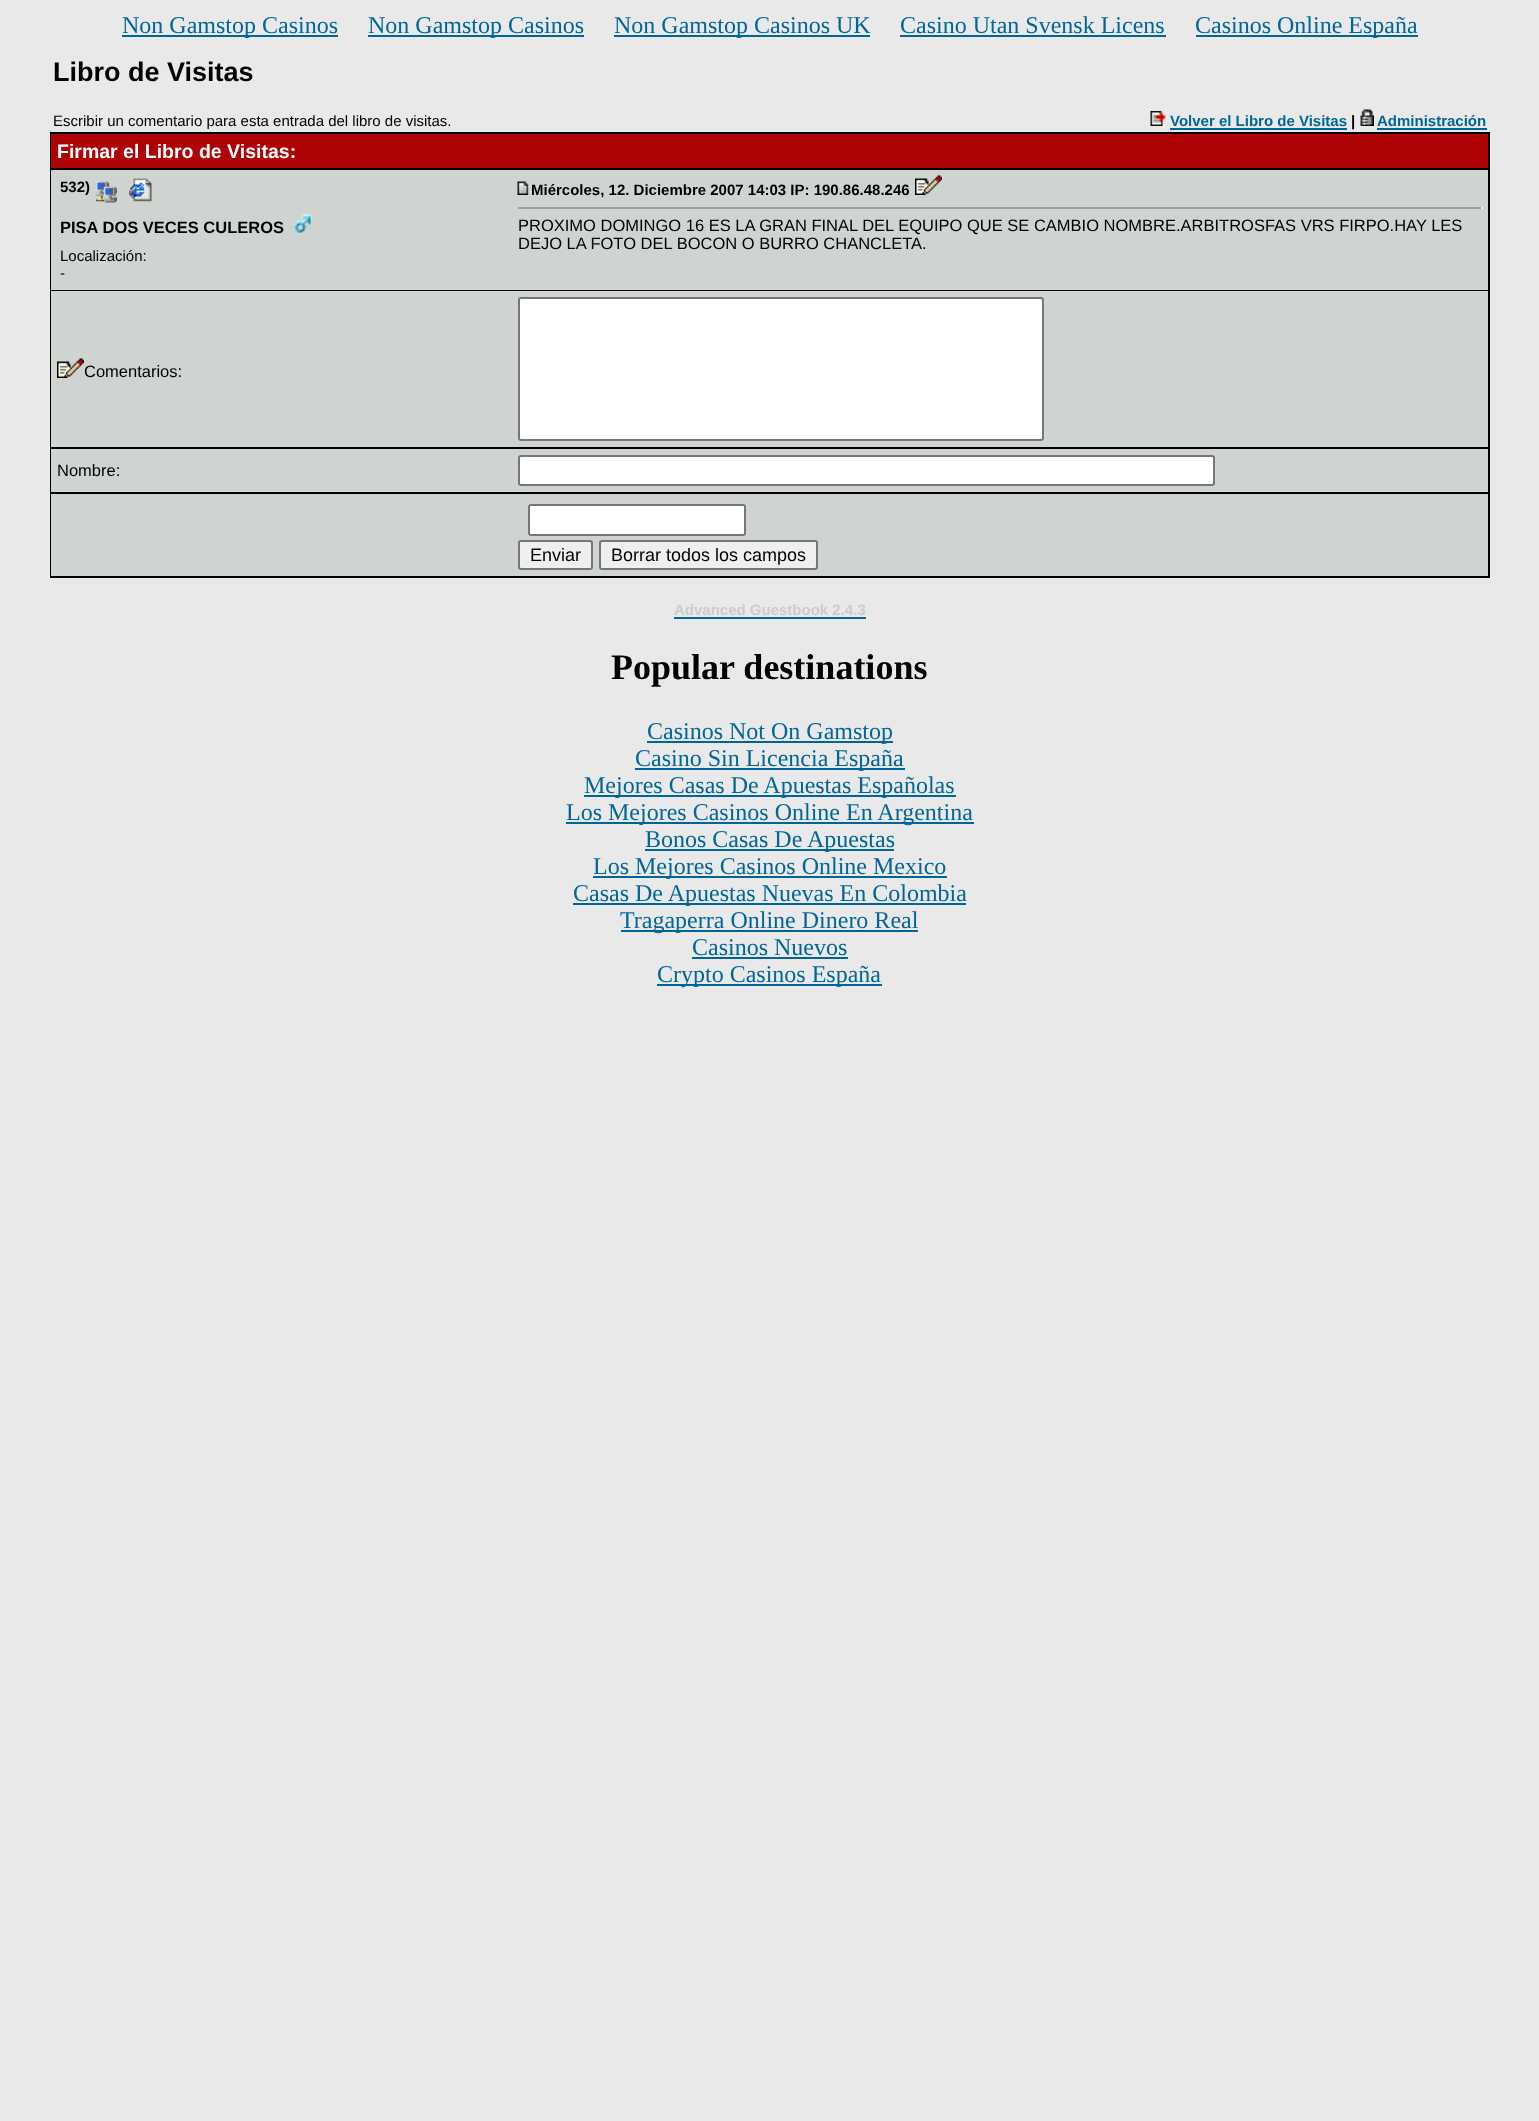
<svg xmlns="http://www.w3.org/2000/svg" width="1539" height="2121">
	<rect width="100%" height="100%" fill="#E9E9E9" />
	<rect x="122" y="35" width="216" height="2" fill="#006699" />
	<text x="122" y="33" font-family="Liberation Serif" font-size="24" fill="#006699">Non Gamstop Casinos</text>
	<rect x="368" y="35" width="216" height="2" fill="#006699" />
	<text x="368" y="33" font-family="Liberation Serif" font-size="24" fill="#006699">Non Gamstop Casinos</text>
	<rect x="614" y="35" width="256" height="2" fill="#006699" />
	<g font-family="Liberation Serif" font-size="24" fill="#006699">
		<text x="614" y="33">Non Gamstop Casinos UK</text>
		<text x="900" y="33">Casino Utan Svensk Licens</text>
	</g>
	<rect x="900" y="35" width="266" height="2" fill="#006699" />
	<rect x="1196" y="35" width="222" height="2" fill="#006699" />
	<text x="1195" y="33" font-family="Liberation Serif" font-size="24" fill="#006699">Casinos Online España</text>
	<text x="53" y="81" font-family="Liberation Sans" font-size="27" font-weight="700" fill="#000000">Libro de Visitas</text>
	<text x="53" y="126" font-family="Liberation Sans" font-size="15" fill="#000000">Escribir un comentario para esta entrada del libro de visitas.</text>
	<image x="1150" y="111" width="16" height="15" href="assets/img1.png" />
	<text x="1170" y="126" font-family="Liberation Sans" font-size="15" font-weight="700" fill="#006699">Volver el Libro de Visitas</text>
	<rect x="1170" y="128" width="177" height="2" fill="#006699" />
	<text x="1351" y="126" font-family="Liberation Sans" font-size="15" font-weight="700" fill="#000000">|</text>
	<image x="1360" y="109" width="14" height="17" href="assets/img2.png" />
	<text x="1377" y="126" font-family="Liberation Sans" font-size="15" font-weight="700" fill="#006699">Administración</text>
	<rect x="1377" y="128" width="110" height="2" fill="#006699" />
	<rect x="50" y="132" width="1440" height="446" fill="#000000" />
	<rect x="51" y="134" width="1437" height="34" fill="#AE0407" />
	<text x="57" y="158" font-family="Liberation Sans" font-size="19.5" font-weight="700" fill="#FFFFFF">Firmar el Libro de Visitas:</text>
	<rect x="51" y="170" width="1437" height="120" fill="#CFD4D0" />
	<text x="60" y="192" font-family="Liberation Sans" font-size="15" font-weight="700" fill="#000000">532)</text>
	<image x="96" y="181" width="21" height="22" href="assets/img3.png" />
	<image x="129" y="178" width="23" height="24" href="assets/img4.png" />
	<text x="60" y="233" font-family="Liberation Sans" font-size="16.5" font-weight="700" fill="#000000">PISA DOS VECES CULEROS</text>
	<image x="294" y="214" width="18" height="19" href="assets/img5.png" />
	<g font-family="Liberation Sans" font-size="15" fill="#000000">
		<text x="60" y="261">Localización:</text>
		<text x="60" y="278">-</text>
	</g>
	<image x="517" y="181" width="12" height="14" href="assets/img6.png" />
	<text x="531" y="195" font-family="Liberation Sans" font-size="15" font-weight="700" fill="#000000">Miércoles, 12. Diciembre 2007 14:03 IP: 190.86.48.246</text>
	<image x="915" y="175" width="27" height="20" href="assets/img7.png" />
	<rect x="518" y="207" width="964" height="2" fill="#9F9F9F" />
	<rect x="1481" y="207" width="2" height="2" fill="#EEEEEE" />
	<g font-family="Liberation Sans" font-size="16.5" fill="#000000">
		<text x="518" y="231">PROXIMO DOMINGO 16 ES LA GRAN FINAL DEL EQUIPO QUE SE CAMBIO NOMBRE.ARBITROSFAS VRS FIRPO.HAY LES</text>
		<text x="518" y="249">DEJO LA FOTO DEL BOCON O BURRO CHANCLETA.</text>
	</g>
	<rect x="51" y="291" width="1437" height="156" fill="#CFD4D0" />
	<image x="57" y="358" width="27" height="20" href="assets/img7.png" />
	<text x="84" y="377" font-family="Liberation Sans" font-size="16.5" fill="#000000">Comentarios:</text>
	<rect x="519" y="298" width="524" height="142" rx="2" fill="#FFFFFF" stroke="#767676" stroke-width="2" />
	<rect x="51" y="449" width="1437" height="43" fill="#CFD4D0" />
	<text x="57" y="476" font-family="Liberation Sans" font-size="16.5" fill="#000000">Nombre:</text>
	<rect x="519" y="456" width="695" height="29" rx="2" fill="#FFFFFF" stroke="#767676" stroke-width="2" />
	<rect x="51" y="494" width="1437" height="82" fill="#CFD4D0" />
	<rect x="529" y="505" width="216" height="30" rx="2" fill="#FFFFFF" stroke="#767676" stroke-width="2" />
	<rect x="519" y="541" width="73" height="28" rx="2" fill="#EFEFEF" stroke="#767676" stroke-width="2" />
	<text x="530" y="561" font-family="Liberation Sans" font-size="18" fill="#000000">Enviar</text>
	<rect x="600" y="541" width="217" height="28" rx="2" fill="#EFEFEF" stroke="#767676" stroke-width="2" />
	<text x="611" y="561" font-family="Liberation Sans" font-size="18" fill="#000000">Borrar todos los campos</text>
	<text x="674" y="615" font-family="Liberation Sans" font-size="15" font-weight="700" fill="#CCCCCC">Advanced Guestbook 2.4.3</text>
	<rect x="674" y="617" width="192" height="2" fill="#006699" />
	<text x="611" y="679" font-family="Liberation Serif" font-size="36" font-weight="700" fill="#000000">Popular destinations</text>
	<rect x="647" y="741" width="246" height="2" fill="#006699" />
	<text x="647" y="739" font-family="Liberation Serif" font-size="24" fill="#006699">Casinos Not On Gamstop</text>
	<rect x="635" y="768" width="270" height="2" fill="#006699" />
	<text x="635" y="766" font-family="Liberation Serif" font-size="24" fill="#006699">Casino Sin Licencia España</text>
	<rect x="584" y="795" width="372" height="2" fill="#006699" />
	<text x="584" y="793" font-family="Liberation Serif" font-size="24" fill="#006699">Mejores Casas De Apuestas Españolas</text>
	<rect x="566" y="822" width="408" height="2" fill="#006699" />
	<text x="566" y="820" font-family="Liberation Serif" font-size="24" fill="#006699">Los Mejores Casinos Online En Argentina</text>
	<rect x="645" y="849" width="249" height="2" fill="#006699" />
	<text x="645" y="847" font-family="Liberation Serif" font-size="24" fill="#006699">Bonos Casas De Apuestas</text>
	<rect x="593" y="876" width="354" height="2" fill="#006699" />
	<text x="593" y="874" font-family="Liberation Serif" font-size="24" fill="#006699">Los Mejores Casinos Online Mexico</text>
	<rect x="573" y="903" width="393" height="2" fill="#006699" />
	<text x="573" y="901" font-family="Liberation Serif" font-size="24" fill="#006699">Casas De Apuestas Nuevas En Colombia</text>
	<rect x="621" y="930" width="297" height="2" fill="#006699" />
	<g font-family="Liberation Serif" font-size="24" fill="#006699">
		<text x="620" y="928">Tragaperra Online Dinero Real</text>
		<text x="692" y="955">Casinos Nuevos</text>
	</g>
	<rect x="692" y="957" width="156" height="2" fill="#006699" />
	<rect x="657" y="984" width="225" height="2" fill="#006699" />
	<text x="657" y="982" font-family="Liberation Serif" font-size="24" fill="#006699">Crypto Casinos España</text>
</svg>
